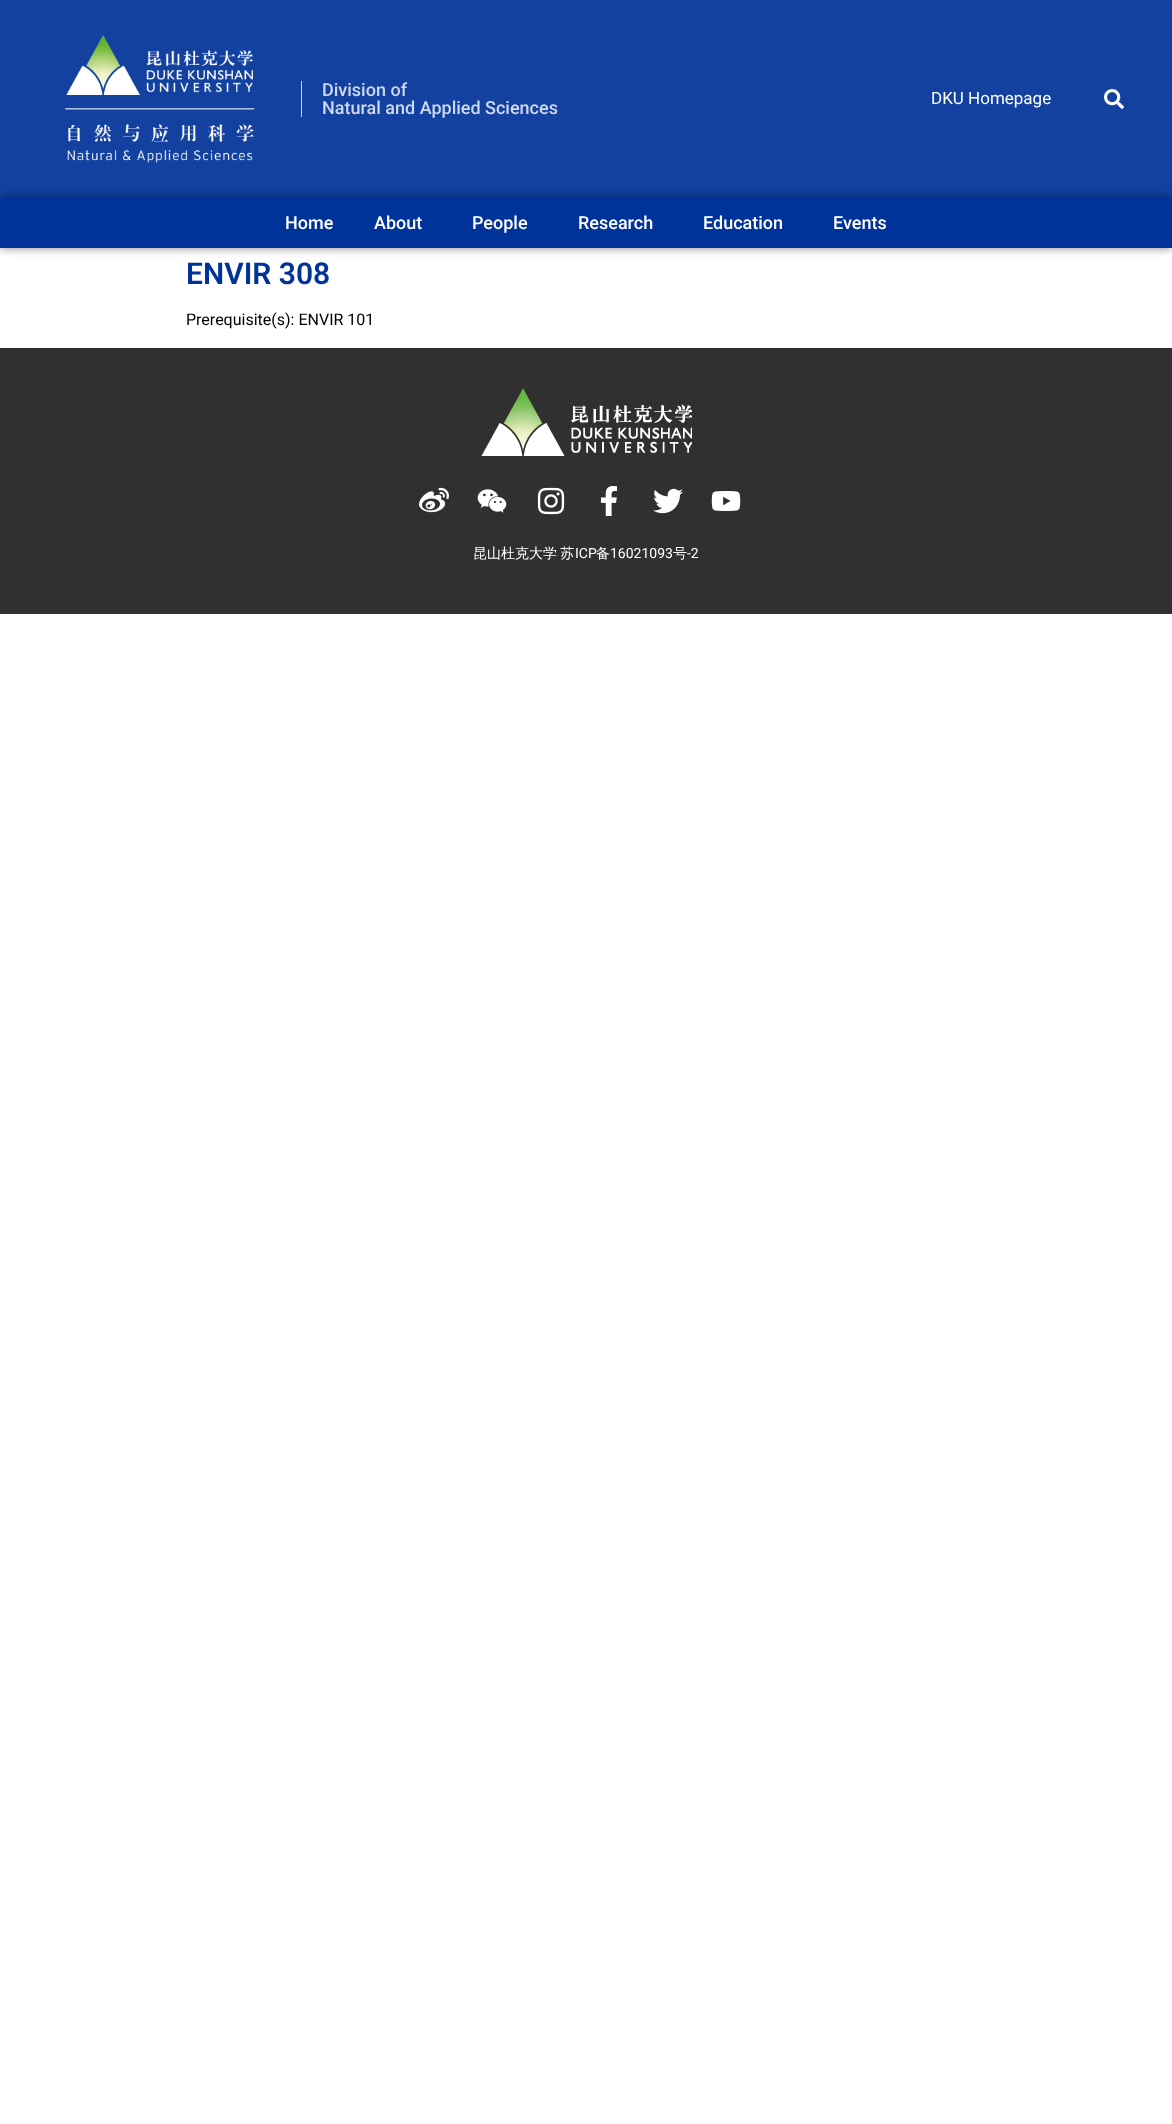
<svg xmlns="http://www.w3.org/2000/svg" width="1172" height="2124">
	<rect width="100%" height="100%" fill="#FFFFFF" />
	<rect x="0" y="0" width="1172" height="198" fill="#1241A0" />
	<image x="64" y="35" width="191" height="128" href="assets/img1.png" />
	<rect x="301" y="81" width="1" height="36" fill="#D0D9EC" />
	<g font-family="Roboto" font-size="18" font-weight="500" fill="#D0D9EC">
		<text x="322" y="96">Division of</text>
		<text x="322" y="114">Natural and Applied Sciences</text>
	</g>
	<text x="931" y="104" font-family="Roboto" font-size="17" fill="#FFFFFF">DKU Homepage</text>
	<image x="1104" y="89" width="20" height="20" href="assets/img2.png" />
	<rect x="0" y="198" width="1172" height="50" fill="#000000" fill-opacity="0.5" filter="blur(5px)" />
	<rect x="0" y="198" width="1172" height="50" fill="#003399" />
	<g font-family="Roboto" font-size="18" font-weight="500" fill="#FFFFFF">
		<text x="285" y="229">Home</text>
		<text x="374" y="229">About</text>
		<text x="472" y="229">People</text>
		<text x="578" y="229">Research</text>
		<text x="703" y="229">Education</text>
		<text x="833" y="229">Events</text>
	</g>
	<text x="186" y="284" font-family="Roboto" font-size="30" font-weight="600" fill="#003399">ENVIR 308</text>
	<text x="186" y="325" font-family="Roboto" font-size="16" fill="#000000">Prerequisite(s): ENVIR 101</text>
	<rect x="0" y="348" width="1172" height="266" fill="#303030" />
	<image x="481" y="388" width="211" height="68" href="assets/img3.png" />
	<image x="419" y="487" width="30" height="26" href="assets/img4.png" />
	<image x="477" y="489" width="30" height="24" href="assets/img5.png" />
	<image x="537" y="487" width="28" height="28" href="assets/img6.png" />
	<image x="600" y="486" width="18" height="30" href="assets/img7.png" />
	<image x="653" y="488" width="30" height="26" href="assets/img8.png" />
	<image x="711" y="491" width="30" height="20" href="assets/img9.png" />
	<text x="473" y="558" word-spacing="-1" font-family="WenQuanYi Zen Hei" font-size="14" font-weight="500" fill="#FFFFFF">昆山杜克大学 苏</text>
	<text x="575" y="558" font-family="Roboto" font-size="14" fill="#FFFFFF">ICP</text>
	<text x="596" y="558" font-family="WenQuanYi Zen Hei" font-size="14" font-weight="500" fill="#FFFFFF">备</text>
	<text x="610" y="558" font-family="Roboto" font-size="14" fill="#FFFFFF">16021093</text>
	<text x="673" y="558" font-family="WenQuanYi Zen Hei" font-size="14" font-weight="500" fill="#FFFFFF">号</text>
	<text x="687" y="558" font-family="Roboto" font-size="14" fill="#FFFFFF">-2</text>
</svg>
